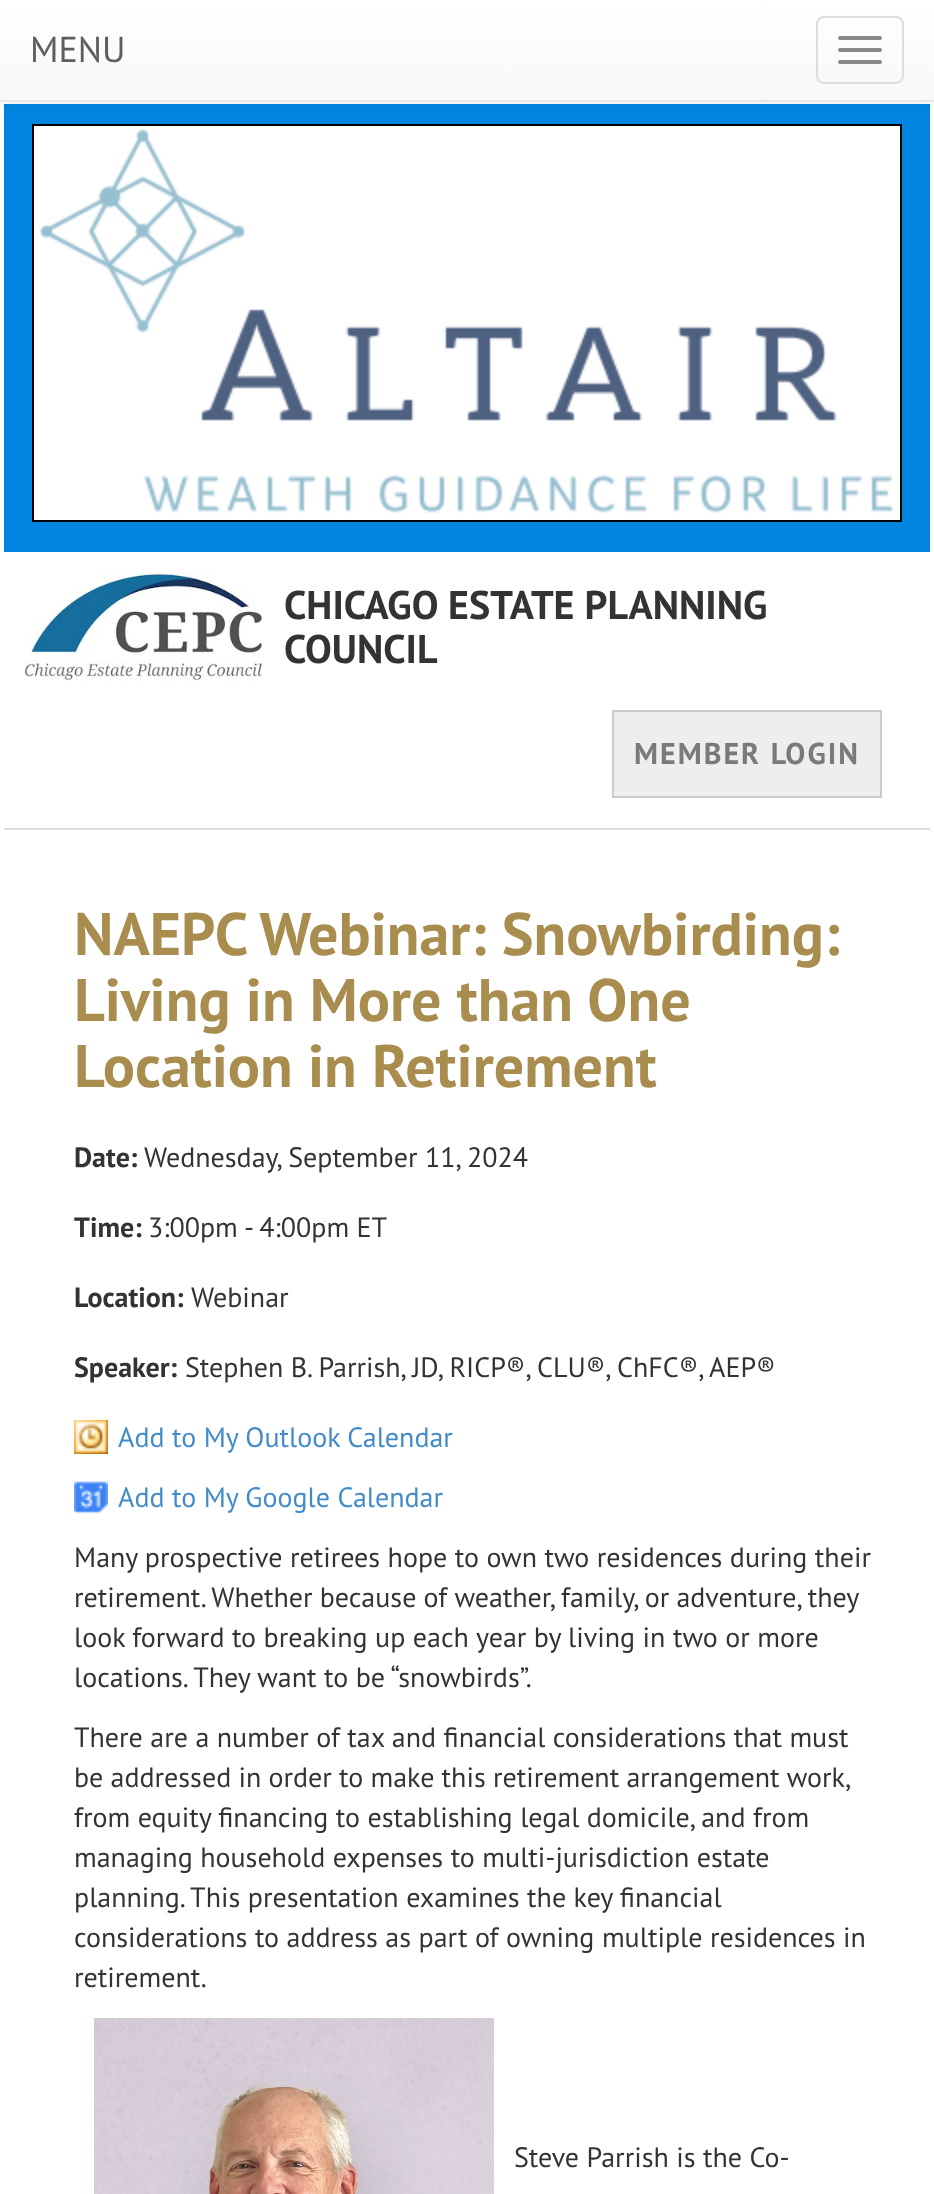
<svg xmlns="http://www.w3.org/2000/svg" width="934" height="2194">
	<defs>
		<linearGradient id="g1" gradientUnits="userSpaceOnUse" x1="467" y1="0" x2="467" y2="100"><stop offset="0" stop-color="#FFFFFF" /><stop offset="1" stop-color="#F8F8F8" /></linearGradient>
	</defs>
	<rect width="100%" height="100%" fill="#FFFFFF" />
	<rect x="4" y="104" width="926" height="448" fill="#0185E1" />
	<rect x="0" y="2" width="934" height="102" fill="#000000" fill-opacity="0.07" filter="blur(5px)" />
	<rect x="0" y="0" width="934" height="100" fill="url(#g1)" />
	<rect x="0" y="100" width="934" height="2" fill="#E7E7E7" />
	<text x="30" y="62" font-family="PT Sans" font-size="36" fill="#5E5E5E">MENU</text>
	<rect x="817" y="17" width="86" height="66" rx="7" fill="none" stroke="#DDDDDD" stroke-width="2" />
	<rect x="838" y="36" width="44" height="4" rx="2" fill="#888888" />
	<rect x="838" y="48" width="44" height="4" rx="2" fill="#888888" />
	<rect x="838" y="60" width="44" height="4" rx="2" fill="#888888" />
	<rect x="33" y="125" width="868" height="396" fill="#FFFFFF" stroke="#000000" stroke-width="2" />
	<image x="39" y="129" width="854" height="384" href="assets/img1.png" />
	<rect x="4" y="828" width="926" height="2" fill="#DDDDDD" />
	<image x="24" y="572" width="240" height="109" href="assets/img2.png" />
	<g font-family="PT Sans" font-size="40" font-weight="700" fill="#333333">
		<text x="284" y="619">CHICAGO ESTATE PLANNING</text>
		<text x="284" y="663">COUNCIL</text>
	</g>
	<rect x="613" y="711" width="268" height="86" fill="#EEEEEE" stroke="#CCCCCC" stroke-width="2" />
	<text x="634" y="764" font-family="PT Sans" font-size="30" font-weight="700" letter-spacing="2" fill="#7C797B">MEMBER LOGIN</text>
	<g font-family="PT Sans" font-size="60" font-weight="700" fill="#A88D4F">
		<text x="74" y="955">NAEPC Webinar: Snowbirding:</text>
		<text x="74" y="1021">Living in More than One</text>
		<text x="74" y="1087">Location in Retirement</text>
	</g>
	<text x="74" y="1167" font-family="PT Sans" font-size="28" font-weight="700" fill="#333333">Date:</text>
	<text x="144" y="1167" font-family="PT Sans" font-size="28" fill="#333333">Wednesday, September 11, 2024</text>
	<text x="74" y="1237" font-family="PT Sans" font-size="28" font-weight="700" fill="#333333">Time:</text>
	<g font-family="PT Sans" font-size="28" fill="#333333">
		<text x="148" y="1237">3:00pm</text>
		<text x="244" y="1237">- 4:00pm ET</text>
	</g>
	<text x="74" y="1307" font-family="PT Sans" font-size="28" font-weight="700" fill="#333333">Location:</text>
	<text x="191" y="1307" font-family="PT Sans" font-size="28" fill="#333333">Webinar</text>
	<text x="74" y="1377" font-family="PT Sans" font-size="28" font-weight="700" fill="#333333">Speaker:</text>
	<text x="185" y="1377" font-family="PT Sans" font-size="28" fill="#333333">Stephen B. Parrish, JD, RICP®, CLU®, ChFC®, AEP®</text>
	<image x="74" y="1420" width="34" height="34" href="assets/img3.png" />
	<text x="118" y="1447" font-family="PT Sans" font-size="28" fill="#428BCA">Add to My Outlook Calendar</text>
	<image x="74" y="1481" width="34" height="33" href="assets/img4.png" />
	<text x="118" y="1507" font-family="PT Sans" font-size="28" fill="#428BCA">Add to My Google Calendar</text>
	<g font-family="PT Sans" font-size="28" fill="#333333">
		<text x="74" y="1567">Many prospective retirees hope to own two residences during their</text>
		<text x="74" y="1607" word-spacing="-0.25">retirement. Whether because of weather, family, or adventure, they</text>
		<text x="74" y="1647">look forward to breaking up each year by living in two or more</text>
		<text x="74" y="1687">locations. They want to be “snowbirds”.</text>
		<text x="74" y="1747">There are a number of tax and financial considerations that must</text>
		<text x="74" y="1787" word-spacing="-0.25">be addressed in order to make this retirement arrangement work,</text>
		<text x="74" y="1827">from equity financing to establishing legal domicile, and from</text>
		<text x="74" y="1867">managing household expenses to multi-jurisdiction estate</text>
		<text x="74" y="1907">planning. This presentation examines the key financial</text>
		<text x="74" y="1947">considerations to address as part of owning multiple residences in</text>
		<text x="74" y="1987">retirement.</text>
	</g>
	<image x="94" y="2018" width="400" height="176" href="assets/img5.png" />
	<text x="514" y="2167" font-family="PT Sans" font-size="28" fill="#333333">Steve Parrish is the Co-</text>
</svg>
